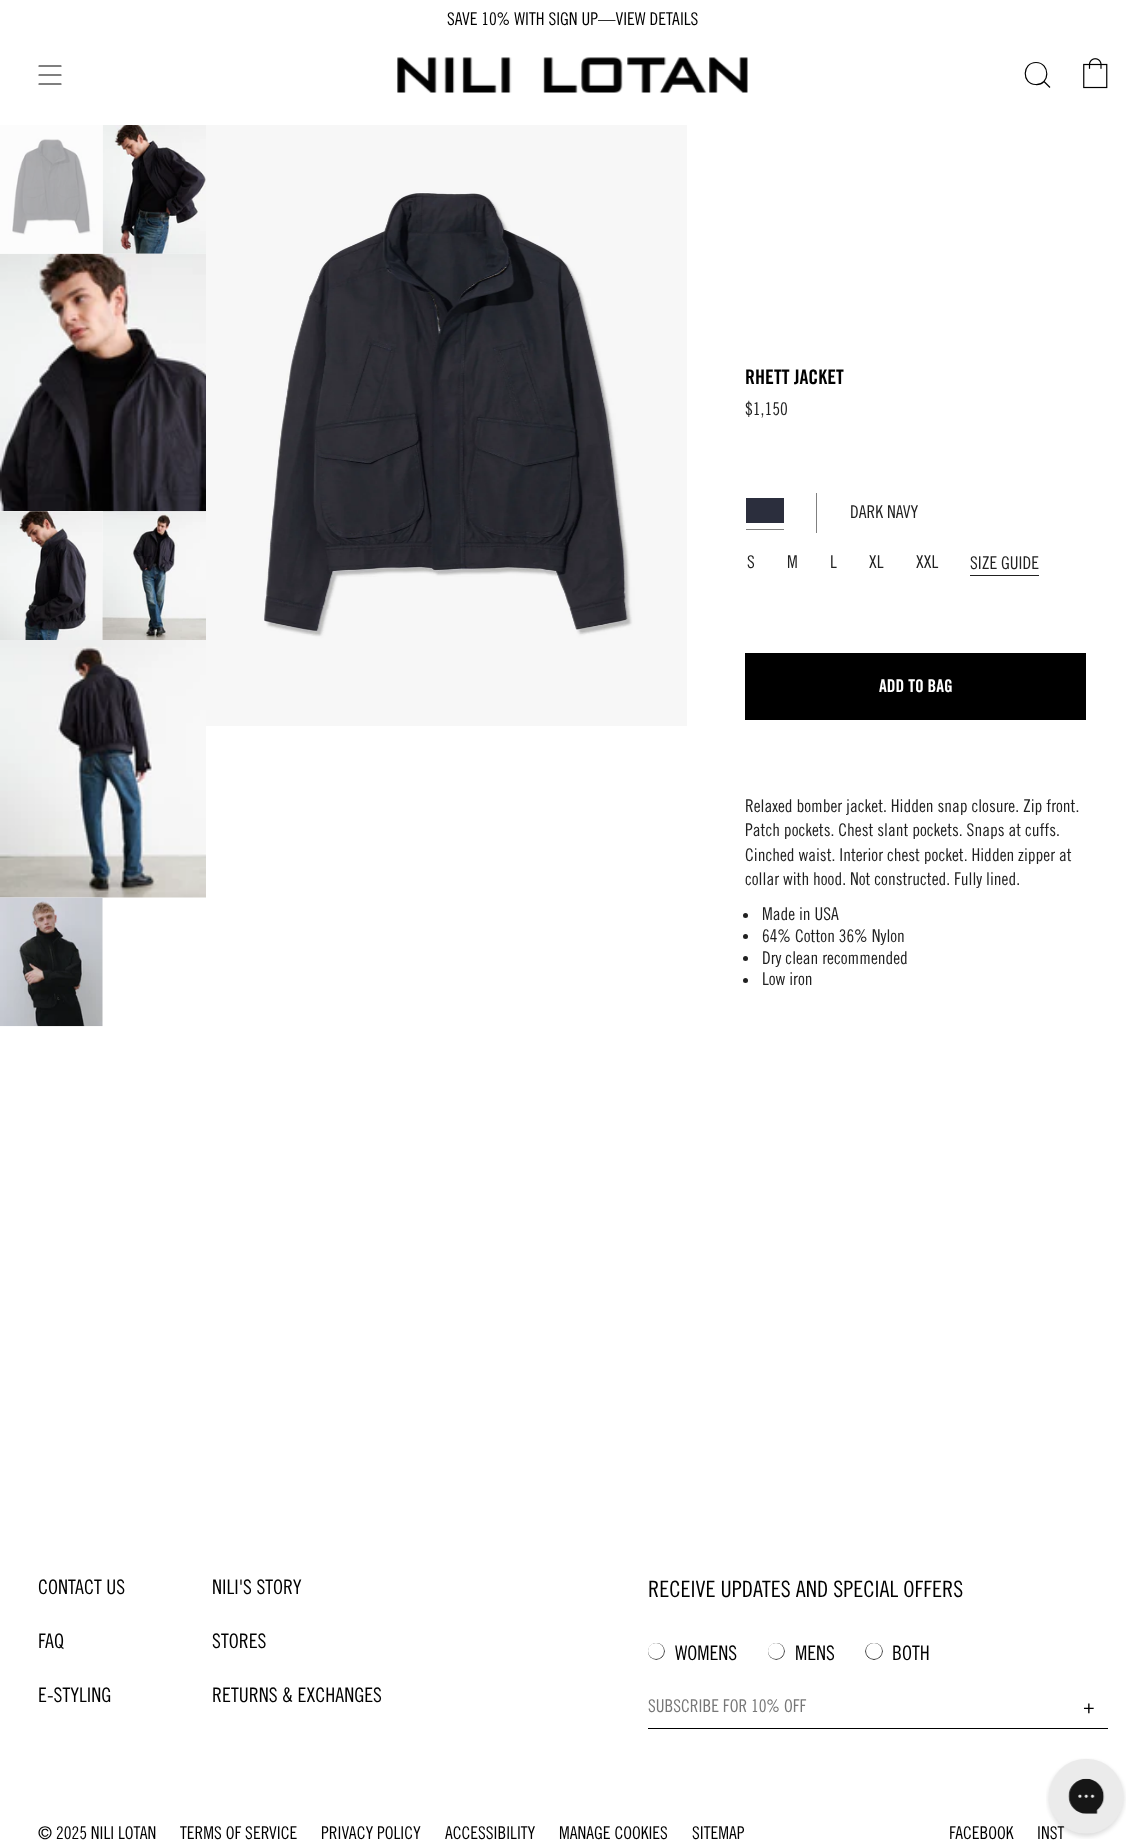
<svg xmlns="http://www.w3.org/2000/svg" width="1145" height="1842">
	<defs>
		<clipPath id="clip1"><rect x="648" y="1643" width="17" height="17" rx="8.5" /></clipPath>
		<clipPath id="clip2"><rect x="768" y="1643" width="17" height="17" rx="8.5" /></clipPath>
		<clipPath id="clip3"><rect x="865" y="1643" width="18" height="17" rx="8.5" /></clipPath>
	</defs>
	<rect width="100%" height="100%" fill="#FFFFFF" />
	<text x="447" y="25" font-family="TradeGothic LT" font-size="17.5" fill="#000000">SAVE 10% WITH SIGN UP—VIEW DETAILS</text>
	<path d="M39 66H61M39 75H61M39 84H61" fill="none" stroke="#000000" stroke-width="1.2" stroke-linecap="round" stroke-linejoin="round" />
	<image x="397" y="57" width="351" height="36" href="assets/img1.png" />
	<path d="M1036 62.5C1050.5 62.5 1050.5 85.5 1035.5 84.5C1021.5 84 1022 62.5 1036 62.5ZM1044 81.5L1050 87.5" fill="none" stroke="#000000" stroke-width="1.2" />
	<image x="1083" y="58" width="25" height="31" href="assets/img2.png" />
	<image x="0" y="125" width="103" height="129" href="assets/img3.png" />
	<image x="102" y="125" width="104" height="129" href="assets/img4.png" />
	<image x="0" y="253" width="206" height="259" href="assets/img5.png" />
	<rect x="0" y="125" width="103" height="129" fill="#FFFFFF" fill-opacity="0.6" />
	<rect x="0" y="511" width="103" height="1" fill="#FFFFFF" />
	<image x="0" y="511" width="103" height="129" href="assets/img6.png" />
	<image x="102" y="511" width="104" height="129" href="assets/img7.png" />
	<image x="0" y="640" width="206" height="258" href="assets/img8.png" />
	<image x="0" y="897" width="103" height="130" href="assets/img9.png" />
	<image x="206" y="125" width="481" height="601" href="assets/img10.png" />
	<text x="745" y="384" font-family="TradeGothic LT" font-size="20" font-weight="700" fill="#000000">RHETT JACKET</text>
	<text x="745" y="415" font-family="TradeGothic LT" font-size="17.5" fill="#212121">$1,150</text>
	<rect x="746" y="498" width="38" height="25" fill="#2B2E3D" />
	<rect x="746" y="529" width="38" height="1" fill="#808080" />
	<rect x="816" y="493" width="1" height="40" fill="#808080" />
	<g font-family="TradeGothic LT" font-size="17.5" fill="#212121">
		<text x="850" y="518">DARK NAVY</text>
		<text x="747" y="568">S</text>
		<text x="787" y="568">M</text>
		<text x="830" y="568">L</text>
		<text x="869" y="568">XL</text>
		<text x="916" y="568">XXL</text>
		<text x="970" y="569">SIZE GUIDE</text>
	</g>
	<rect x="970" y="575" width="69" height="1" fill="#212121" />
	<rect x="745" y="653" width="341" height="67" fill="#000000" />
	<text x="879" y="692" font-family="TradeGothic LT" font-size="17.5" font-weight="700" fill="#FFFFFF">ADD TO BAG</text>
	<g font-family="TradeGothic LT" font-size="17.5" fill="#212121">
		<text x="745" y="812">Relaxed bomber jacket. Hidden snap closure. Zip front.</text>
		<text x="745" y="836">Patch pockets. Chest slant pockets. Snaps at cuffs.</text>
		<text x="745" y="861">Cinched waist. Interior chest pocket. Hidden zipper at</text>
		<text x="745" y="885">collar with hood. Not constructed. Fully lined.</text>
	</g>
	<circle cx="745.5" cy="915.5" r="2.5" fill="#212121" />
	<text x="762" y="920" font-family="TradeGothic LT" font-size="17.5" fill="#212121">Made in USA</text>
	<circle cx="745.5" cy="936.5" r="2.5" fill="#212121" />
	<text x="762" y="942" font-family="TradeGothic LT" font-size="17.5" fill="#212121">64% Cotton 36% Nylon</text>
	<circle cx="745.5" cy="958.5" r="2.5" fill="#212121" />
	<text x="762" y="964" font-family="TradeGothic LT" font-size="17.5" fill="#212121">Dry clean recommended</text>
	<circle cx="745.5" cy="980.5" r="2.5" fill="#212121" />
	<text x="762" y="985" font-family="TradeGothic LT" font-size="17.5" fill="#212121">Low iron</text>
	<g font-family="TradeGothic LT" font-size="20" fill="#000000">
		<text x="38" y="1594">CONTACT US</text>
		<text x="212" y="1594">NILI'S STORY</text>
		<text x="38" y="1648">FAQ</text>
		<text x="212" y="1648">STORES</text>
		<text x="38" y="1702">E-STYLING</text>
		<text x="212" y="1702">RETURNS &amp; EXCHANGES</text>
	</g>
	<text x="648" y="1597" font-family="TradeGothic LT" font-size="22.5" fill="#000000">RECEIVE UPDATES AND SPECIAL OFFERS</text>
	<g clip-path="url(#clip1)">
		<circle cx="656" cy="1651" r="8.5" fill="none" stroke="#242424" stroke-width="0.9" />
	</g>
	<text x="675" y="1660" font-family="TradeGothic LT" font-size="20" fill="#000000">WOMENS</text>
	<g clip-path="url(#clip2)">
		<circle cx="776" cy="1651" r="8.5" fill="none" stroke="#242424" stroke-width="0.9" />
	</g>
	<text x="795" y="1660" font-family="TradeGothic LT" font-size="20" fill="#000000">MENS</text>
	<g clip-path="url(#clip3)">
		<circle cx="874" cy="1651" r="8.5" fill="none" stroke="#242424" stroke-width="0.9" />
	</g>
	<text x="892" y="1660" font-family="TradeGothic LT" font-size="20" fill="#000000">BOTH</text>
	<rect x="648" y="1728" width="460" height="1" fill="#000000" />
	<text x="648" y="1712" font-family="TradeGothic LT" font-size="17.5" fill="#777777">SUBSCRIBE FOR 10% OFF</text>
	<text x="1083" y="1715" font-family="Liberation Sans" font-size="20" fill="#000000">+</text>
	<g font-family="TradeGothic LT" font-size="17.5" fill="#000000">
		<text x="38" y="1839">© 2025 NILI LOTAN</text>
		<text x="180" y="1839">TERMS OF SERVICE</text>
		<text x="321" y="1839">PRIVACY POLICY</text>
		<text x="445" y="1839">ACCESSIBILITY</text>
		<text x="559" y="1839">MANAGE COOKIES</text>
		<text x="692" y="1839">SITEMAP</text>
		<text x="949" y="1839">FACEBOOK</text>
		<text x="1037" y="1839">INST</text>
	</g>
	<image x="1046" y="1758" width="80" height="81" href="assets/img11.png" />
</svg>
